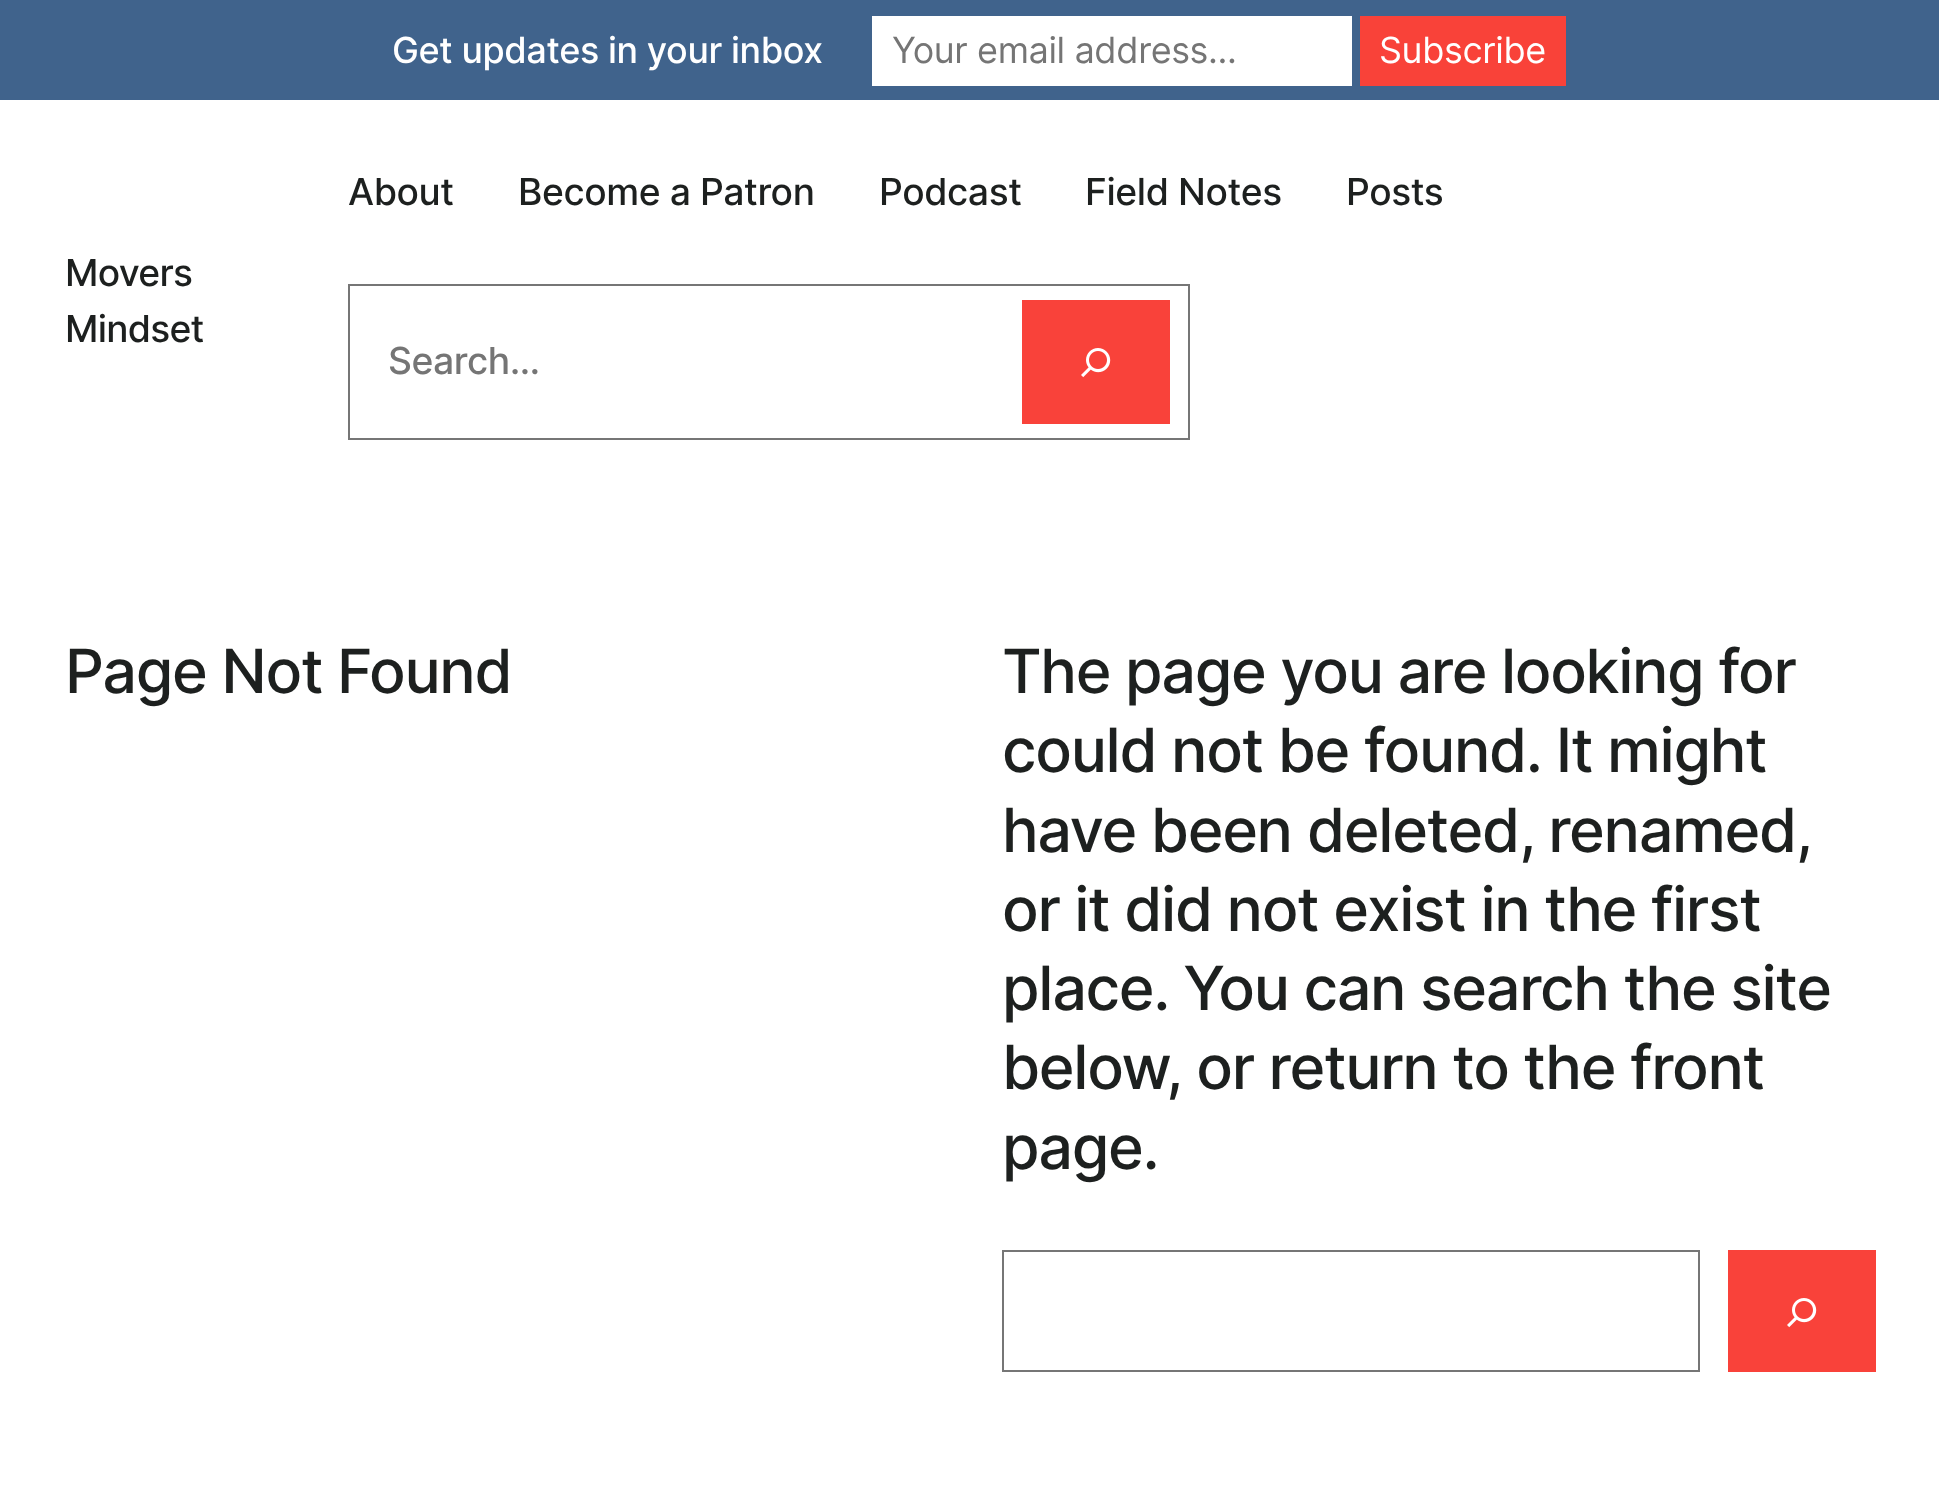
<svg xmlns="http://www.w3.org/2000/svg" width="1939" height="1502">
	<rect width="100%" height="100%" fill="#FFFFFF" />
	<rect x="0" y="0" width="1939" height="100" fill="#40638C" />
	<text x="392" y="63" font-family="Inter" font-size="36" font-weight="500" font-style="italic" letter-spacing="-0.4" fill="#FFFFFF">Get updates in your inbox</text>
	<rect x="872" y="16" width="480" height="70" fill="#FFFFFF" />
	<text x="892" y="63" font-family="Inter" font-size="36" font-style="italic" letter-spacing="-0.4" fill="#757575">Your email address...</text>
	<rect x="1360" y="16" width="206" height="70" fill="#F94239" />
	<text x="1379" y="63" font-family="Inter" font-size="36" font-style="italic" letter-spacing="-0.4" fill="#FFFFFF">Subscribe</text>
	<g font-family="Inter" font-size="37.25" font-weight="500" font-style="italic" letter-spacing="-0.75" fill="#1D201F">
		<text x="65" y="286">Movers</text>
		<text x="65" y="342">Mindset</text>
	</g>
	<g font-family="Inter" font-size="37.25" font-weight="500" font-style="italic" letter-spacing="-0.4" fill="#1D201F">
		<text x="348" y="205">About</text>
		<text x="518" y="205">Become a Patron</text>
		<text x="879" y="205">Podcast</text>
		<text x="1085" y="205">Field Notes</text>
		<text x="1346" y="205">Posts</text>
	</g>
	<rect x="349" y="285" width="840" height="154" fill="none" stroke="#767676" stroke-width="2" />
	<text x="388" y="374" font-family="Inter" font-size="37.25" font-weight="500" font-style="italic" letter-spacing="-0.4" fill="#757575">Search…</text>
	<rect x="1022" y="300" width="148" height="124" fill="#F9423A" />
	<image x="1081" y="348" width="30" height="30" href="assets/img1.png" />
	<g font-family="Inter" font-size="61" font-weight="500" font-style="italic" letter-spacing="-1.35" fill="#1D201F">
		<text x="65" y="693">Page Not Found</text>
		<text x="1002" y="693">The page you are looking for</text>
		<text x="1002" y="772">could not be found. It might</text>
		<text x="1002" y="852">have been</text>
		<text x="1307" y="852" word-spacing="-1">deleted, renamed,</text>
		<text x="1002" y="931">or it did not exist in the first</text>
		<text x="1002" y="1010">place. You can search the site</text>
		<text x="1002" y="1089">below, or return to the front</text>
		<text x="1002" y="1169">page.</text>
	</g>
	<rect x="1003" y="1251" width="696" height="120" fill="none" stroke="#767676" stroke-width="2" />
	<rect x="1728" y="1250" width="148" height="122" fill="#F9423A" />
	<image x="1787" y="1298" width="30" height="30" href="assets/img1.png" />
</svg>
